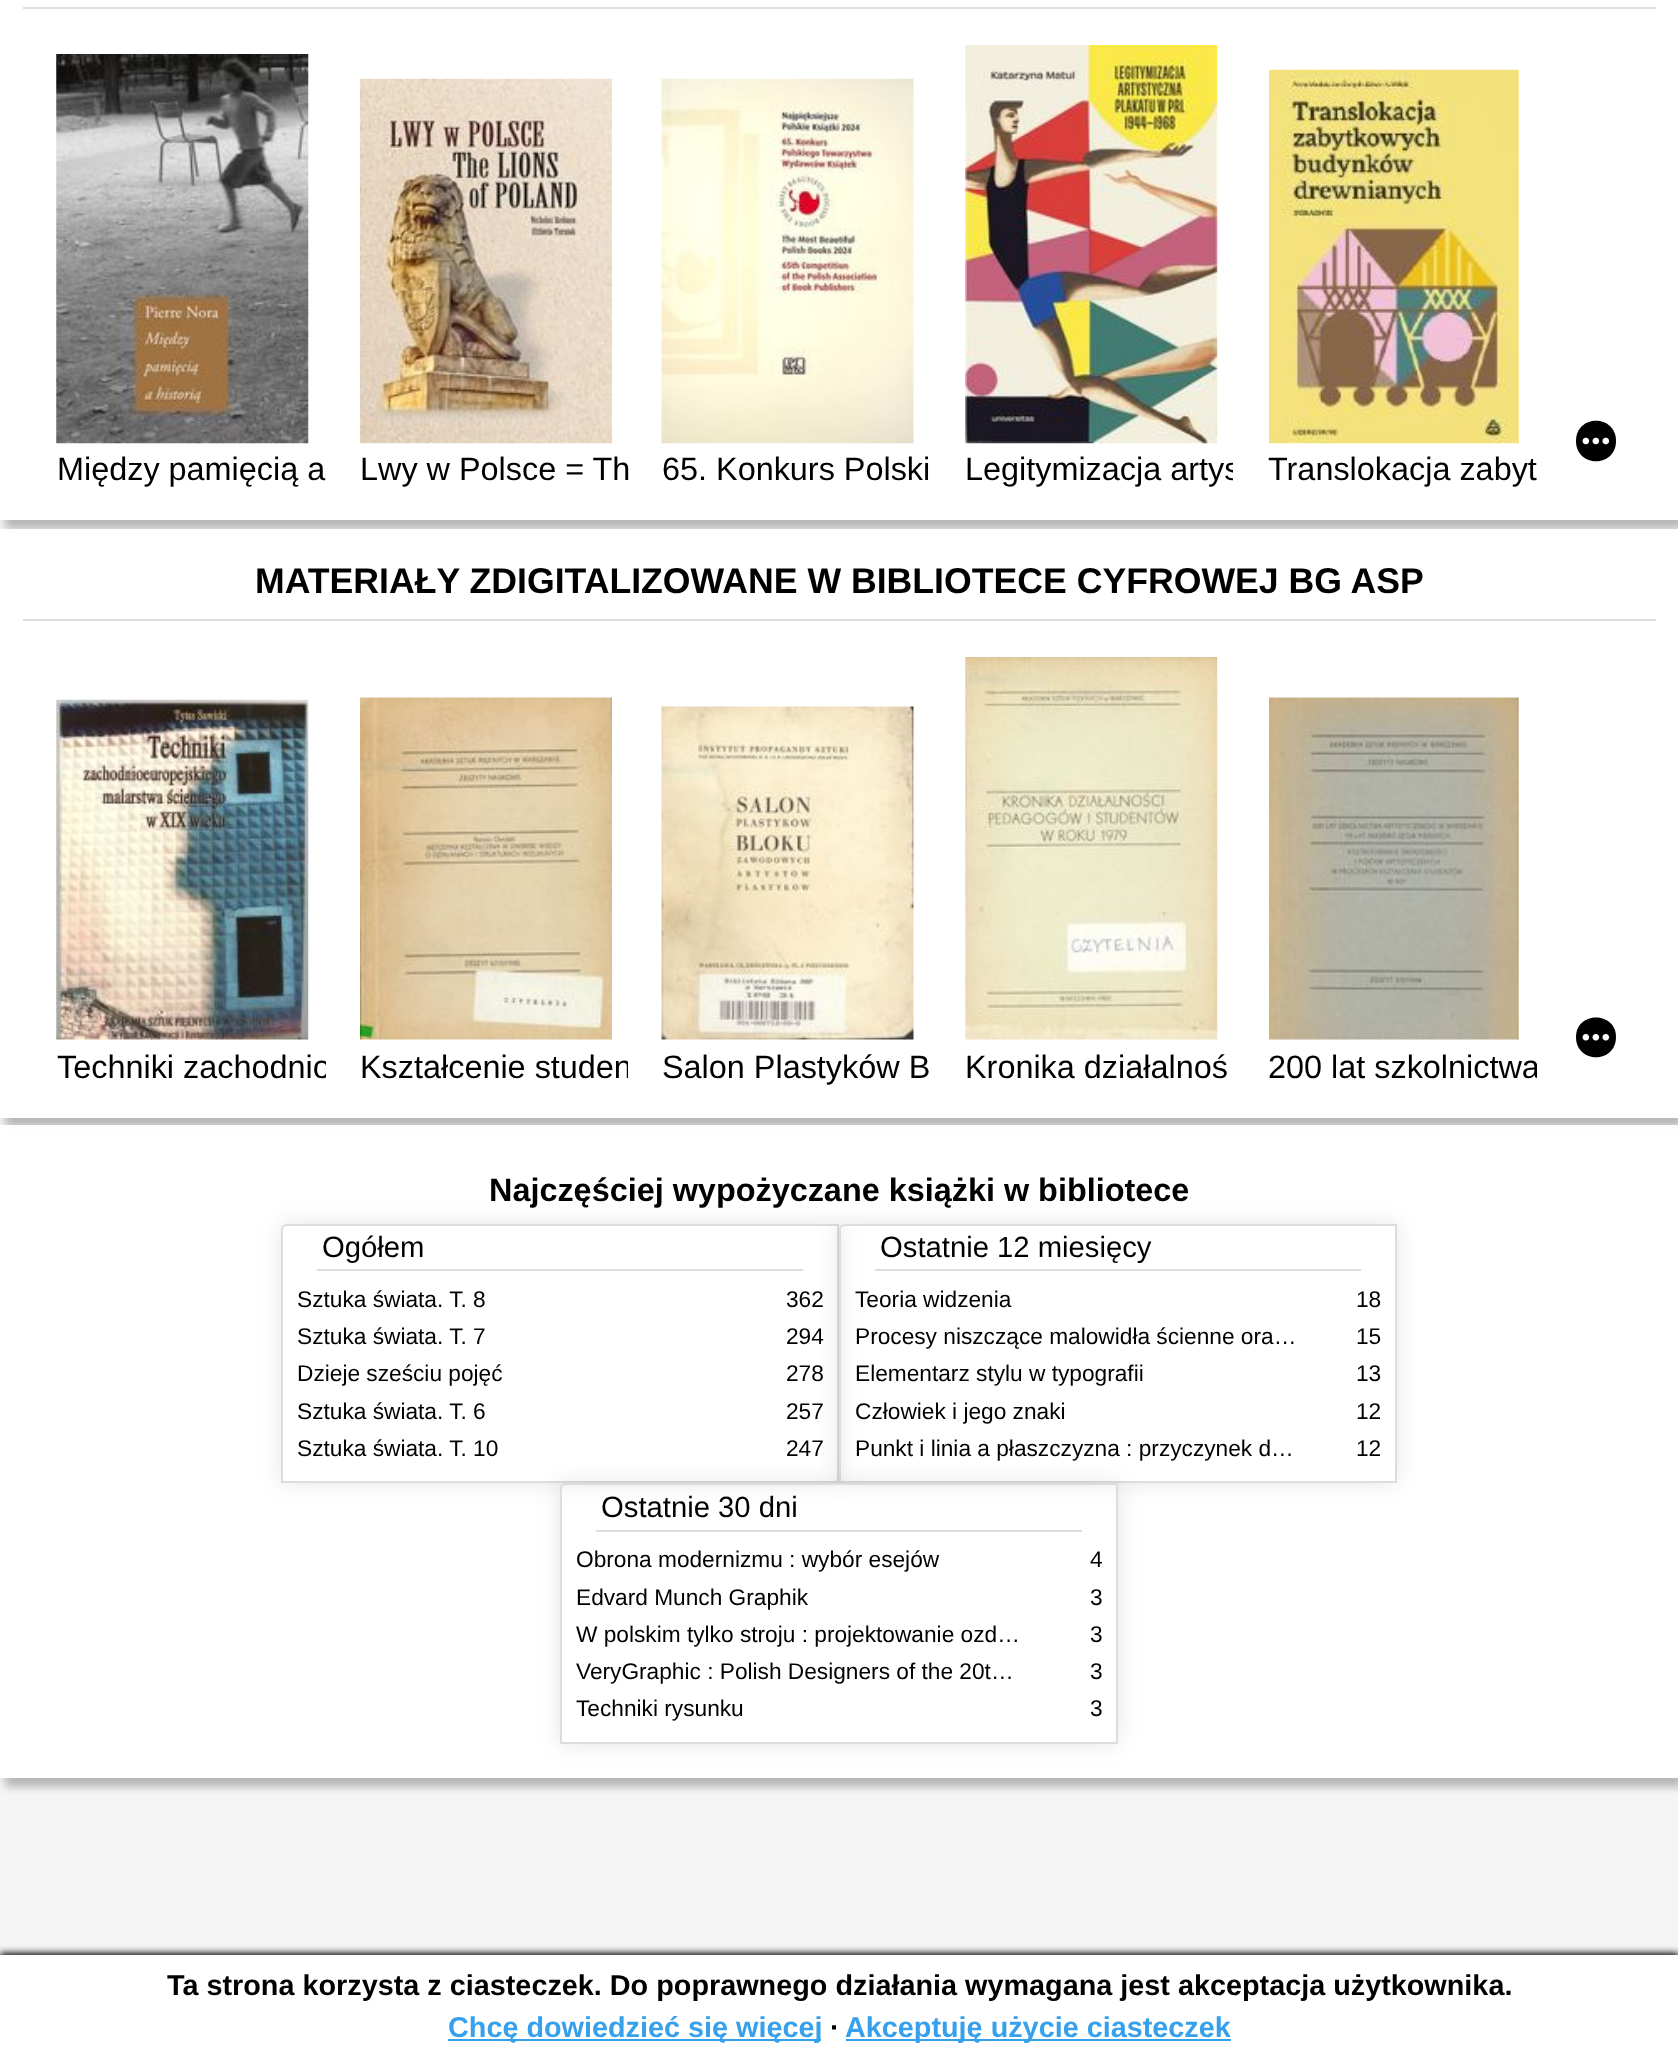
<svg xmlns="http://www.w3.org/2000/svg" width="1678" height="2064">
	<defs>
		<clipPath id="clip1"><path d="M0 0H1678V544H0ZM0-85H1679V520H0Z" clip-rule="evenodd" /></clipPath>
		<clipPath id="clip2"><rect x="965" y="452" width="268" height="45" /></clipPath>
		<clipPath id="clip3"><rect x="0" y="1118" width="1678" height="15" /></clipPath>
		<clipPath id="clip4"><rect x="56" y="1049" width="270" height="47" /></clipPath>
		<clipPath id="clip5"><rect x="360" y="1049" width="268" height="47" /></clipPath>
		<clipPath id="clip6"><rect x="1269" y="1049" width="268" height="47" /></clipPath>
		<clipPath id="clip7"><path d="M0 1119H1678V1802H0ZM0 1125H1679V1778H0Z" clip-rule="evenodd" /></clipPath>
		<clipPath id="clip8"><path d="M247 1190H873V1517H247ZM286 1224H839V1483H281V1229C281 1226 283 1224 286 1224Z" clip-rule="evenodd" /></clipPath>
		<clipPath id="clip9"><path d="M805 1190H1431V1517H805ZM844 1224H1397V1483H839V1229C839 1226 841 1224 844 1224Z" clip-rule="evenodd" /></clipPath>
		<clipPath id="clip10"><path d="M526 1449H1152V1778H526ZM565 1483H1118V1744H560V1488C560 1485 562 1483 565 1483Z" clip-rule="evenodd" /></clipPath>
	</defs>
	<rect width="100%" height="100%" fill="#F5F5F5" />
	<g clip-path="url(#clip1)">
		<rect x="5" y="-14" width="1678" height="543" fill="#000000" fill-opacity="0.25" filter="blur(4.5px)" />
	</g>
	<rect x="0" y="0" width="1678" height="520" fill="#FFFFFF" fill-opacity="0.95" />
	<rect x="23" y="7" width="1633" height="2" fill="#DDDDDD" />
	<path d="M1576 441C1576 414 1616 414 1616 441C1616 468 1576 468 1576 441Z" fill="#000000" />
	<image x="1582" y="437" width="28" height="8" href="assets/img1.png" />
	<image x="56" y="54" width="253" height="390" href="assets/img2.png" />
	<text x="57" y="480" font-family="Liberation Sans" font-size="32.4" fill="#000000">Między pamięcią a</text>
	<image x="360" y="78" width="252" height="366" href="assets/img3.png" />
	<text x="360" y="480" font-family="Liberation Sans" font-size="32.4" fill="#000000">Lwy w Polsce = Th</text>
	<image x="661" y="78" width="253" height="366" href="assets/img4.png" />
	<text x="662" y="480" font-family="Liberation Sans" font-size="32.4" fill="#000000">65. Konkurs Polski</text>
	<image x="965" y="45" width="253" height="399" href="assets/img5.png" />
	<g clip-path="url(#clip2)">
		<text x="965" y="480" font-family="Liberation Sans" font-size="32.4" fill="#000000">Legitymizacja artys</text>
	</g>
	<image x="1269" y="69" width="250" height="375" href="assets/img6.png" />
	<text x="1268" y="480" font-family="Liberation Sans" font-size="32.4" fill="#000000">Translokacja zabyt</text>
	<g clip-path="url(#clip3)">
		<rect x="5" y="538" width="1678" height="589" fill="#000000" fill-opacity="0.25" filter="blur(4.5px)" />
	</g>
	<rect x="0" y="529" width="1678" height="589" fill="#FFFFFF" fill-opacity="0.95" />
	<rect x="23" y="619" width="1633" height="2" fill="#DDDDDD" />
	<text x="255" y="593" font-family="Liberation Sans" font-size="35.65" font-weight="700" fill="#000000">MATERIAŁY ZDIGITALIZOWANE W BIBLIOTECE CYFROWEJ BG ASP</text>
	<path d="M1576 1037C1576 1011 1616 1011 1616 1037C1616 1064 1576 1064 1576 1037Z" fill="#000000" />
	<image x="1582" y="1033" width="28" height="8" href="assets/img7.png" />
	<image x="56" y="699" width="253" height="341" href="assets/img8.png" />
	<g clip-path="url(#clip4)">
		<text x="57" y="1078" font-family="Liberation Sans" font-size="32.4" fill="#000000">Techniki zachodnio</text>
	</g>
	<image x="360" y="697" width="252" height="343" href="assets/img9.png" />
	<g clip-path="url(#clip5)">
		<text x="360" y="1078" font-family="Liberation Sans" font-size="32.4" fill="#000000">Kształcenie studen</text>
	</g>
	<image x="661" y="706" width="253" height="334" href="assets/img10.png" />
	<text x="662" y="1078" font-family="Liberation Sans" font-size="32.4" fill="#000000">Salon Plastyków B</text>
	<image x="965" y="657" width="253" height="383" href="assets/img11.png" />
	<text x="965" y="1078" font-family="Liberation Sans" font-size="32.4" fill="#000000">Kronika działalnoś</text>
	<image x="1269" y="697" width="250" height="343" href="assets/img12.png" />
	<g clip-path="url(#clip6)">
		<text x="1268" y="1078" font-family="Liberation Sans" font-size="32.4" fill="#000000">200 lat szkolnictwa</text>
	</g>
	<g clip-path="url(#clip7)">
		<rect x="5" y="1134" width="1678" height="653" fill="#000000" fill-opacity="0.25" filter="blur(4.5px)" />
	</g>
	<rect x="0" y="1125" width="1678" height="653" fill="#FFFFFF" fill-opacity="0.95" />
	<text x="489" y="1201" font-family="Liberation Sans" font-size="32.4" font-weight="700" fill="#000000">Najczęściej wypożyczane książki w bibliotece</text>
	<g clip-path="url(#clip8)">
		<rect x="281" y="1224" width="558" height="259" rx="5" fill="#000000" fill-opacity="0.1" filter="blur(11px)" />
	</g>
	<path d="M286 1225H838V1482H282V1229C282 1227 284 1225 286 1225Z" fill="none" stroke="#DDDDDD" stroke-width="2" />
	<rect x="317" y="1269" width="486" height="2" fill="#DDDDDD" />
	<text x="322" y="1257" font-family="Liberation Sans" font-size="29.25" fill="#000000">Ogółem</text>
	<text x="297" y="1307" font-family="Liberation Sans" font-size="22.7" fill="#000000">Sztuka świata. T. 8</text>
	<g clip-path="url(#clip9)">
		<rect x="839" y="1224" width="558" height="259" rx="5" fill="#000000" fill-opacity="0.1" filter="blur(11px)" />
	</g>
	<g font-family="Liberation Sans" font-size="22.7" fill="#000000">
		<text x="786" y="1307">362</text>
		<text x="297" y="1344">Sztuka świata. T. 7</text>
		<text x="786" y="1344">294</text>
		<text x="297" y="1381">Dzieje sześciu pojęć</text>
		<text x="786" y="1381">278</text>
		<text x="297" y="1419">Sztuka świata. T. 6</text>
		<text x="786" y="1419">257</text>
		<text x="297" y="1456">Sztuka świata. T. 10</text>
	</g>
	<path d="M844 1225H1396V1482H840V1229C840 1227 842 1225 844 1225Z" fill="none" stroke="#DDDDDD" stroke-width="2" />
	<g clip-path="url(#clip10)">
		<rect x="560" y="1483" width="558" height="261" rx="5" fill="#000000" fill-opacity="0.1" filter="blur(11px)" />
	</g>
	<text x="786" y="1456" font-family="Liberation Sans" font-size="22.7" fill="#000000">247</text>
	<rect x="875" y="1269" width="486" height="2" fill="#DDDDDD" />
	<text x="880" y="1257" font-family="Liberation Sans" font-size="29.25" fill="#000000">Ostatnie 12 miesięcy</text>
	<g font-family="Liberation Sans" font-size="22.7" fill="#000000">
		<text x="855" y="1307">Teoria widzenia</text>
		<text x="1356" y="1307">18</text>
		<text x="855" y="1344">Procesy niszczące malowidła ścienne ora…</text>
		<text x="1356" y="1344">15</text>
		<text x="855" y="1381">Elementarz stylu w typografii</text>
		<text x="1356" y="1381">13</text>
		<text x="855" y="1419">Człowiek i jego znaki</text>
		<text x="1356" y="1419">12</text>
		<text x="855" y="1456">Punkt i linia a płaszczyzna : przyczynek d…</text>
		<text x="1356" y="1456">12</text>
	</g>
	<path d="M565 1484H1117V1743H561V1488C561 1486 563 1484 565 1484Z" fill="none" stroke="#DDDDDD" stroke-width="2" />
	<rect x="596" y="1530" width="486" height="2" fill="#DDDDDD" />
	<text x="601" y="1517" font-family="Liberation Sans" font-size="29.25" fill="#000000">Ostatnie 30 dni</text>
	<g font-family="Liberation Sans" font-size="22.7" fill="#000000">
		<text x="576" y="1567">Obrona modernizmu : wybór esejów</text>
		<text x="1090" y="1567">4</text>
		<text x="576" y="1605">Edvard Munch Graphik</text>
		<text x="1090" y="1605">3</text>
		<text x="576" y="1642">W polskim tylko stroju : projektowanie ozd…</text>
		<text x="1090" y="1642">3</text>
		<text x="576" y="1679">VeryGraphic : Polish Designers of the 20t…</text>
		<text x="1090" y="1679">3</text>
		<text x="576" y="1716">Techniki rysunku</text>
		<text x="1090" y="1716">3</text>
	</g>
	<rect x="0" y="1953" width="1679" height="110" fill="#000000" filter="blur(3.5px)" />
	<rect x="0" y="1955" width="1678" height="109" fill="#FFFFFF" />
	<text x="167" y="1995" font-family="Liberation Sans" font-size="28.8" font-weight="700" fill="#000000">Ta strona korzysta z ciasteczek. Do poprawnego działania wymagana jest akceptacja użytkownika.</text>
	<rect x="448" y="2039" width="373" height="2" fill="#36A0EC" />
	<text x="448" y="2037" font-family="Liberation Sans" font-size="28.8" font-weight="700" fill="#36A0EC">Chcę dowiedzieć się więcej</text>
	<text x="830" y="2037" font-family="Liberation Sans" font-size="28.8" font-weight="700" fill="#000000">∙</text>
	<rect x="846" y="2039" width="385" height="2" fill="#36A0EC" />
	<text x="845" y="2037" font-family="Liberation Sans" font-size="28.8" font-weight="700" fill="#36A0EC">Akceptuję użycie ciasteczek</text>
</svg>
